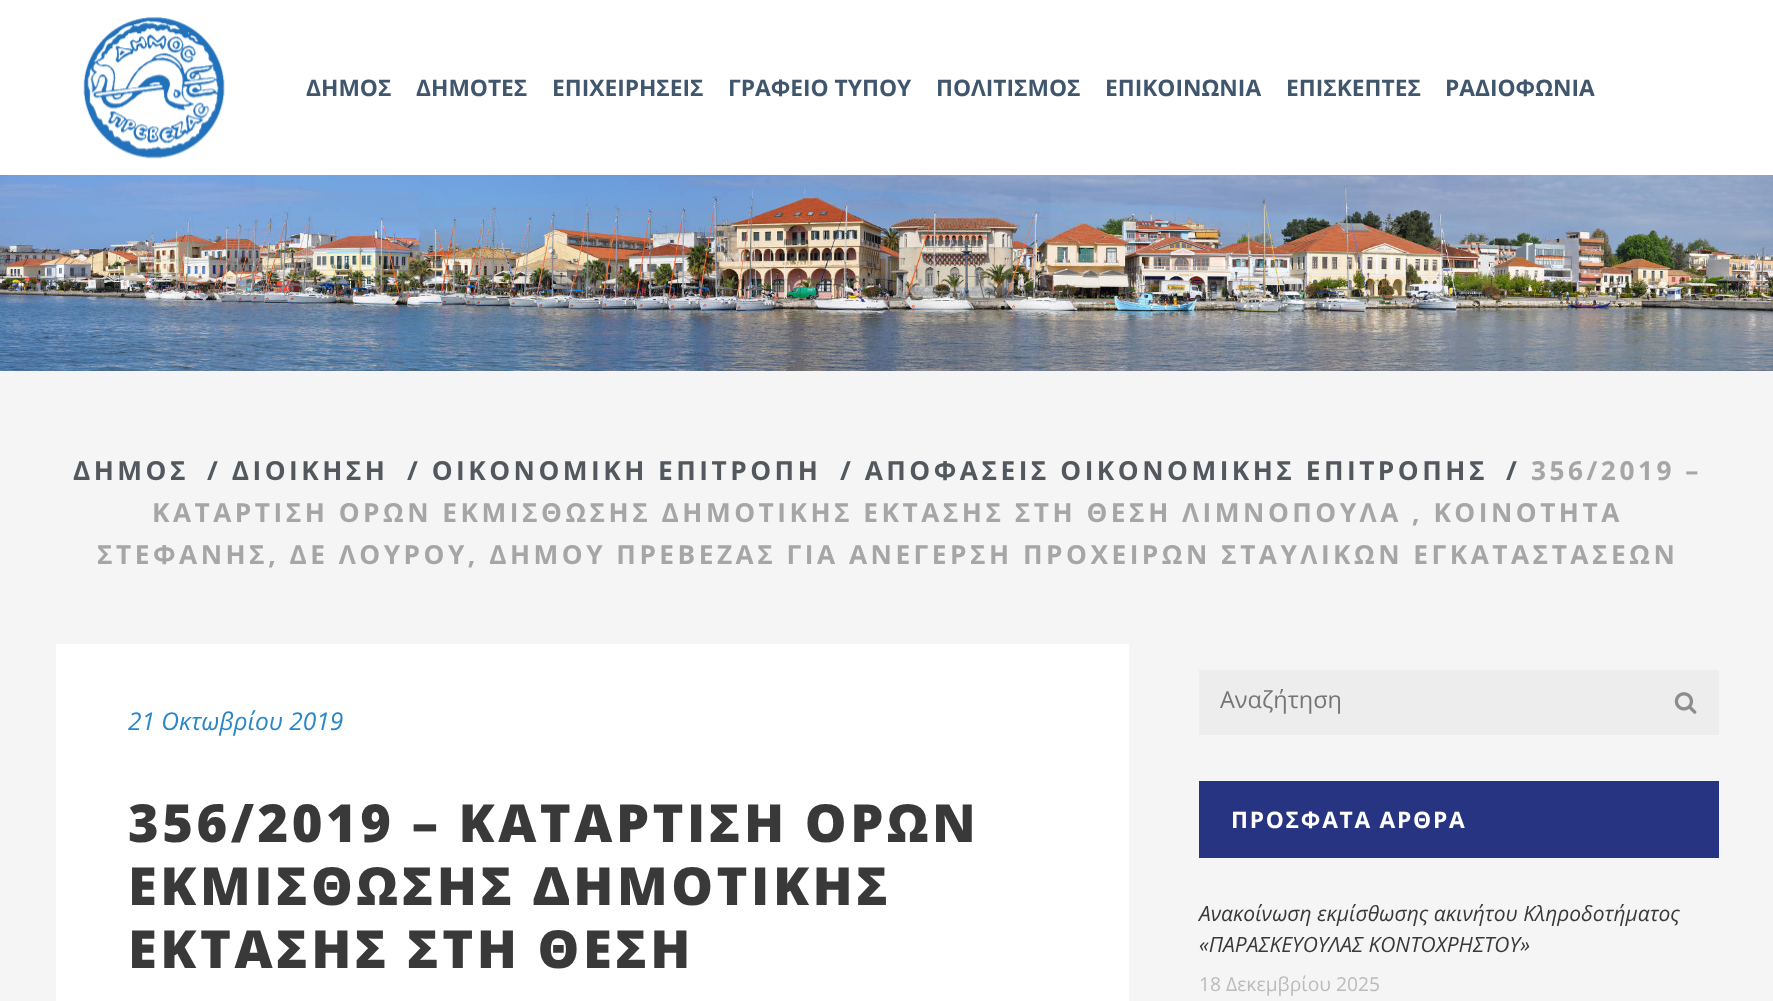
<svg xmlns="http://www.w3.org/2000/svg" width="1773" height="1001">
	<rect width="100%" height="100%" fill="#F5F5F5" />
	<rect x="0" y="0" width="1773" height="175" fill="#FFFFFF" />
	<image x="83" y="17" width="142" height="142" href="assets/img1.png" />
	<g font-family="Open Sans" font-size="22.75" font-weight="700" fill="#40566D">
		<text x="306" y="96">ΔΗΜΟΣ</text>
		<text x="416" y="96">ΔΗΜΟΤΕΣ</text>
		<text x="552" y="96">ΕΠΙΧΕΙΡΗΣΕΙΣ</text>
		<text x="728" y="96">ΓΡΑΦΕΙΟ ΤΥΠΟΥ</text>
		<text x="936" y="96">ΠΟΛΙΤΙΣΜΟΣ</text>
		<text x="1105" y="96">ΕΠΙΚΟΙΝΩΝΙΑ</text>
		<text x="1286" y="96">ΕΠΙΣΚΕΠΤΕΣ</text>
		<text x="1445" y="96">ΡΑΔΙΟΦΩΝΙΑ</text>
	</g>
	<image x="0" y="175" width="1773" height="196" href="assets/img2.png" />
	<g font-family="Open Sans" font-size="26.25" font-weight="700" letter-spacing="3.5" fill="#53585F">
		<text x="73" y="480">ΔΗΜΟΣ</text>
		<text x="207" y="480">/ ΔΙΟΙΚΗΣΗ</text>
		<text x="407" y="480">/ ΟΙΚΟΝΟΜΙΚΗ ΕΠΙΤΡΟΠΗ</text>
		<text x="840" y="480">/ ΑΠΟΦΑΣΕΙΣ ΟΙΚΟΝΟΜΙΚΗΣ ΕΠΙΤΡΟΠΗΣ</text>
		<text x="1506" y="480">/</text>
	</g>
	<g font-family="Open Sans" font-size="26.25" font-weight="700" letter-spacing="3.5" fill="#A6A6A6">
		<text x="1531" y="480">356/2019 –</text>
		<text x="152" y="522">ΚΑΤΑΡΤΙΣΗ ΟΡΩΝ ΕΚΜΙΣΘΩΣΗΣ ΔΗΜΟΤΙΚΗΣ ΕΚΤΑΣΗΣ ΣΤΗ ΘΕΣΗ ΛΙΜΝΟΠΟΥΛΑ , ΚΟΙΝΟΤΗΤΑ</text>
		<text x="97" y="564">ΣΤΕΦΑΝΗΣ, ΔΕ ΛΟΥΡΟΥ, ΔΗΜΟΥ ΠΡΕΒΕΖΑΣ ΓΙΑ ΑΝΕΓΕΡΣΗ ΠΡΟΧΕΙΡΩΝ ΣΤΑΥΛΙΚΩΝ ΕΓΚΑΤΑΣΤΑΣΕΩΝ</text>
	</g>
	<rect x="56" y="644" width="1073" height="357" fill="#FFFFFF" />
	<text x="128" y="730" font-family="Open Sans" font-size="24.5" font-style="italic" fill="#2A87C7">21 Οκτωβρίου 2019</text>
	<g font-family="Open Sans" font-size="52.5" font-weight="800" letter-spacing="3.5" fill="#393939">
		<text x="128" y="842">356/2019 – ΚΑΤΑΡΤΙΣΗ ΟΡΩΝ</text>
		<text x="128" y="905">ΕΚΜΙΣΘΩΣΗΣ ΔΗΜΟΤΙΚΗΣ</text>
		<text x="128" y="968">ΕΚΤΑΣΗΣ ΣΤΗ ΘΕΣΗ</text>
	</g>
	<rect x="1199" y="670" width="520" height="65" fill="#EDEDED" />
	<text x="1220" y="708" font-family="Open Sans" font-size="23.5" fill="#757575">Αναζήτηση</text>
	<image x="1674" y="692" width="23" height="22" href="assets/img3.png" />
	<rect x="1199" y="781" width="520" height="77" fill="#273481" />
	<text x="1231" y="828" font-family="Open Sans" font-size="22.75" font-weight="700" letter-spacing="1.75" fill="#FFFFFF">ΠΡΟΣΦΑΤΑ ΑΡΘΡΑ</text>
	<g font-family="Open Sans" font-size="21" font-style="italic" fill="#393939">
		<text x="1199" y="921">Ανακοίνωση εκμίσθωσης ακινήτου Κληροδοτήματος</text>
		<text x="1199" y="952">«ΠΑΡΑΣΚΕΥΟΥΛΑΣ ΚΟΝΤΟΧΡΗΣΤΟΥ»</text>
	</g>
	<text x="1199" y="991" font-family="Open Sans" font-size="19.25" fill="#BBBBBB">18 Δεκεμβρίου 2025</text>
</svg>
